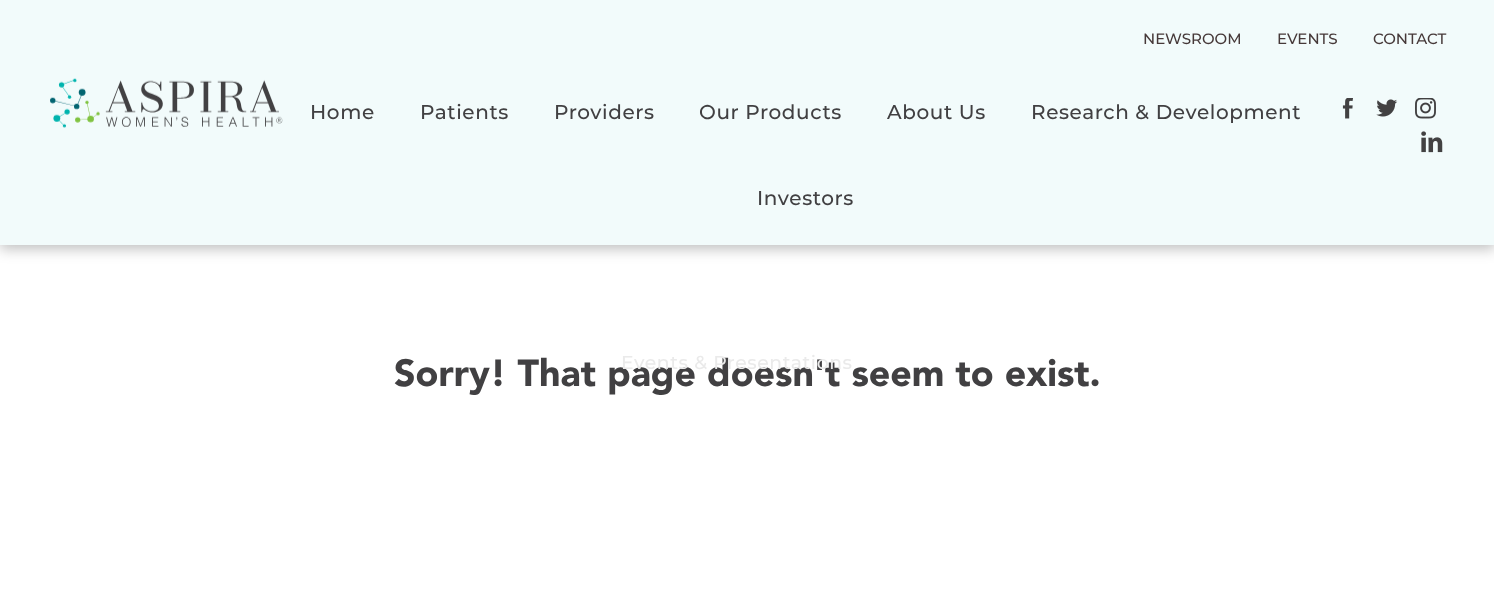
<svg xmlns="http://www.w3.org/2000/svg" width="1494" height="594">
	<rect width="100%" height="100%" fill="#FFFFFF" />
	<rect x="0" y="4" width="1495" height="245" fill="#000000" fill-opacity="0.25" filter="blur(7px)" />
	<rect x="0" y="0" width="1494" height="245" fill="#F2FBFB" />
	<g font-family="Montserrat" font-size="15" font-weight="500" fill="#463939">
		<text x="1143" y="44">NEWSROOM</text>
		<text x="1277" y="44">EVENTS</text>
		<text x="1373" y="44">CONTACT</text>
	</g>
	<image x="50" y="78" width="233" height="50" href="assets/img1.png" />
	<g font-family="Montserrat" font-size="20" font-weight="500" letter-spacing="0.6" fill="#414042">
		<text x="310" y="119">Home</text>
		<text x="420" y="119">Patients</text>
		<text x="554" y="119">Providers</text>
		<text x="699" y="119">Our Products</text>
		<text x="887" y="119">About Us</text>
		<text x="1031" y="119">Research &amp; Development</text>
		<text x="757" y="205">Investors</text>
	</g>
	<text x="394" y="386" font-family="Avenir" font-size="37.5" font-weight="900" fill="#414042">Sorry! That page doesn't seem to exist.</text>
	<text x="621" y="369" font-family="Montserrat" font-size="18.75" font-weight="500" letter-spacing="0.6" fill="#EAEAEA">Events &amp; Presentations</text>
	<image x="1342" y="98" width="11" height="21" href="assets/img2.png" />
	<image x="1376" y="99" width="22" height="18" href="assets/img3.png" />
	<image x="1415" y="98" width="21" height="21" href="assets/img4.png" />
	<image x="1421" y="131" width="22" height="22" href="assets/img5.png" />
</svg>
